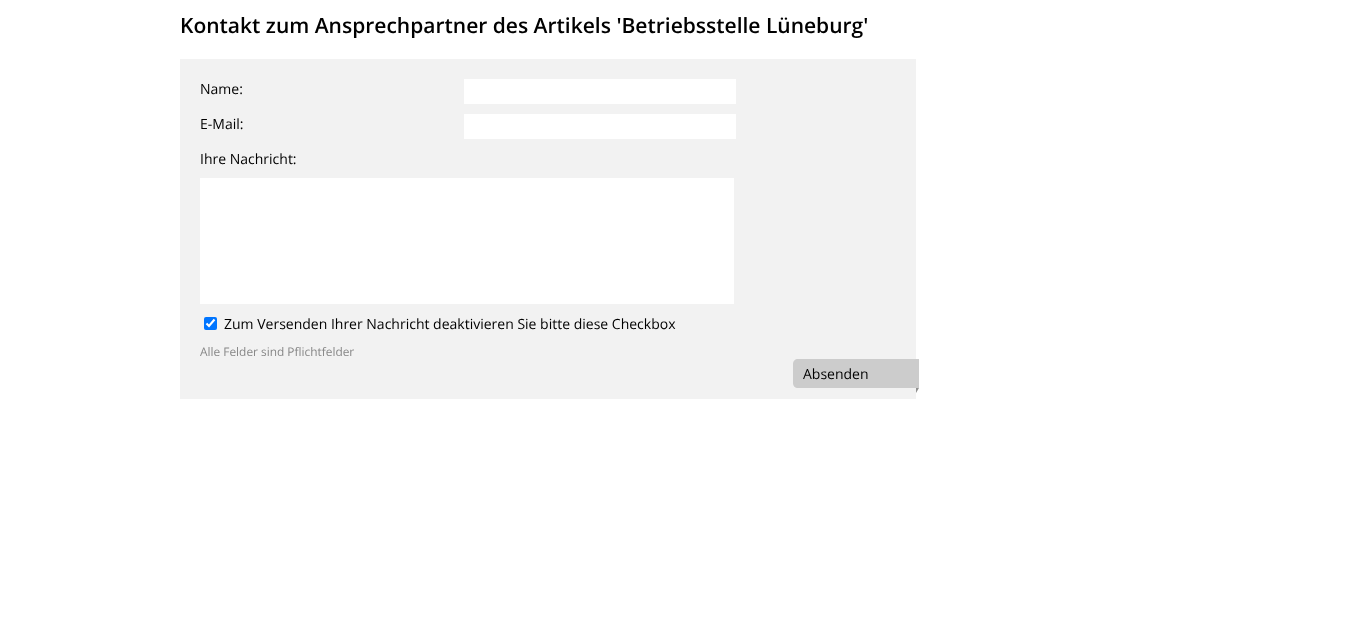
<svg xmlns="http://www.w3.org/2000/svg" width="1348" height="622">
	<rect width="100%" height="100%" fill="#FFFFFF" />
	<text x="180" y="33" font-family="Open Sans" font-size="21" font-weight="600" fill="#000000">Kontakt zum Ansprechpartner des Artikels 'Betriebsstelle Lüneburg'</text>
	<rect x="180" y="59" width="736" height="340" fill="#F2F2F2" />
	<text x="200" y="94" font-family="Open Sans" font-size="14" fill="#000000">Name:</text>
	<rect x="464" y="79" width="272" height="25" fill="#FFFFFF" />
	<text x="200" y="129" font-family="Open Sans" font-size="14" fill="#000000">E-Mail:</text>
	<rect x="464" y="114" width="272" height="25" fill="#FFFFFF" />
	<text x="200" y="164" font-family="Open Sans" font-size="14" fill="#000000">Ihre Nachricht:</text>
	<rect x="200" y="178" width="534" height="126" fill="#FFFFFF" />
	<rect x="204" y="317" width="13" height="13" rx="2" fill="#0075FF" />
	<path d="M206.5 323.5L209 326L214.5 319.5" fill="none" stroke="#FFFFFF" stroke-width="2.1" />
	<text x="224" y="329" font-family="Open Sans" font-size="14" fill="#000000">Zum Versenden Ihrer Nachricht deaktivieren Sie bitte diese Checkbox</text>
	<text x="200" y="356" font-family="Open Sans" font-size="11.9" fill="#878787">Alle Felder sind Pflichtfelder</text>
	<path d="M798 359H919V388H798C795 388 793 386 793 383V364C793 361 795 359 798 359Z" fill="#CCCCCC" />
	<text x="803" y="379" font-family="Open Sans" font-size="14" fill="#000000">Absenden</text>
	<path d="M916 393V388H919Z" fill="#90908F" />
</svg>
